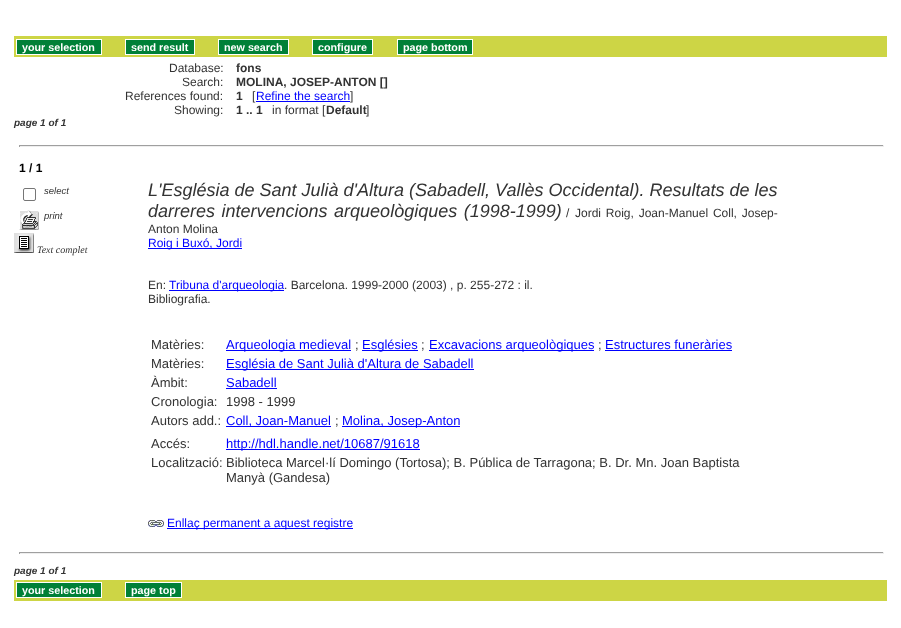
<svg xmlns="http://www.w3.org/2000/svg" width="901" height="628">
	<rect width="100%" height="100%" fill="#FFFFFF" />
	<rect x="14" y="36" width="873" height="21" fill="#CDD545" />
	<rect x="16.5" y="39.5" width="85" height="15" fill="#008037" stroke="#FFFFFF" />
	<text x="22" y="51" font-family="Liberation Sans" font-size="10.75" font-weight="700" fill="#FFFFFF">your selection</text>
	<rect x="125.5" y="39.5" width="69" height="15" fill="#008037" stroke="#FFFFFF" />
	<text x="131" y="51" font-family="Liberation Sans" font-size="10.75" font-weight="700" fill="#FFFFFF">send result</text>
	<rect x="218.5" y="39.5" width="70" height="15" fill="#008037" stroke="#FFFFFF" />
	<text x="224" y="51" font-family="Liberation Sans" font-size="10.75" font-weight="700" fill="#FFFFFF">new search</text>
	<rect x="312.5" y="39.5" width="60" height="15" fill="#008037" stroke="#FFFFFF" />
	<text x="318" y="51" font-family="Liberation Sans" font-size="10.75" font-weight="700" fill="#FFFFFF">configure</text>
	<rect x="397.5" y="39.5" width="75" height="15" fill="#008037" stroke="#FFFFFF" />
	<text x="403" y="51" font-family="Liberation Sans" font-size="10.75" font-weight="700" fill="#FFFFFF">page bottom</text>
	<text x="169" y="72" font-family="Liberation Sans" font-size="12" fill="#333333">Database:</text>
	<text x="236" y="72" font-family="Liberation Sans" font-size="12" font-weight="700" fill="#333333">fons</text>
	<text x="182" y="86" font-family="Liberation Sans" font-size="12" fill="#333333">Search:</text>
	<text x="236" y="86" font-family="Liberation Sans" font-size="12" font-weight="700" fill="#333333">MOLINA, JOSEP-ANTON []</text>
	<text x="125" y="100" font-family="Liberation Sans" font-size="12" fill="#333333">References found:</text>
	<text x="236" y="100" font-family="Liberation Sans" font-size="12" font-weight="700" fill="#333333">1</text>
	<text x="252" y="100" font-family="Liberation Sans" font-size="12" fill="#333333">[</text>
	<text x="256" y="100" font-family="Liberation Sans" font-size="12" fill="#0000FF">Refine the search</text>
	<rect x="256" y="101" width="94" height="1" fill="#0000FF" />
	<g font-family="Liberation Sans" font-size="12" fill="#333333">
		<text x="350" y="100">]</text>
		<text x="174" y="114">Showing:</text>
	</g>
	<text x="236" y="114" font-family="Liberation Sans" font-size="12" font-weight="700" fill="#333333">1 .. 1</text>
	<text x="272" y="114" font-family="Liberation Sans" font-size="12" fill="#333333">in format [</text>
	<text x="326" y="114" font-family="Liberation Sans" font-size="12" font-weight="700" fill="#333333">Default</text>
	<text x="366" y="114" font-family="Liberation Sans" font-size="12" fill="#333333">]</text>
	<text x="14" y="126" font-family="Liberation Sans" font-size="10" font-weight="700" font-style="italic" fill="#333333">page 1 of 1</text>
	<rect x="19" y="145" width="865" height="1" fill="#9F9F9F" />
	<rect x="883" y="145" width="1" height="2" fill="#EEEEEE" />
	<rect x="19" y="146" width="865" height="1" fill="#EEEEEE" />
	<rect x="19" y="145" width="1" height="2" fill="#9F9F9F" />
	<text x="19" y="172" font-family="Liberation Sans" font-size="12" font-weight="700" fill="#000000">1 / 1</text>
	<rect x="23.5" y="188.5" width="12" height="12" rx="1.5" fill="none" stroke="#767676" />
	<text x="44" y="194" font-family="Liberation Sans" font-size="9.5" font-style="italic" fill="#333333">select</text>
	<image x="19" y="210" width="20" height="20" href="assets/img1.png" />
	<text x="44" y="219" font-family="Liberation Sans" font-size="9.5" font-style="italic" fill="#333333">print</text>
	<image x="14" y="233" width="20" height="20" href="assets/img2.png" />
	<text x="37" y="253" font-family="Liberation Serif" font-size="10" font-style="italic" fill="#333333">Text complet</text>
	<g font-family="Liberation Sans" font-size="18" font-style="italic" fill="#333333">
		<text x="148" y="196">L'Església de Sant Julià d'Altura (Sabadell, Vallès Occidental). Resultats de les</text>
		<text x="148" y="217" word-spacing="1.5">darreres intervencions arqueològiques (1998-1999)</text>
	</g>
	<g font-family="Liberation Sans" font-size="12" fill="#333333">
		<text x="566" y="217">/</text>
		<text x="575" y="217" word-spacing="1.5">Jordi Roig, Joan-Manuel Coll, Josep-</text>
		<text x="148" y="233">Anton Molina</text>
	</g>
	<rect x="148" y="248" width="94" height="1" fill="#0000FF" />
	<text x="148" y="247" font-family="Liberation Sans" font-size="12" fill="#0000FF">Roig i Buxó, Jordi</text>
	<text x="148" y="289" font-family="Liberation Sans" font-size="12" fill="#333333">En:</text>
	<rect x="169" y="290" width="115" height="1" fill="#0000FF" />
	<text x="169" y="289" font-family="Liberation Sans" font-size="12" fill="#0000FF">Tribuna d'arqueologia</text>
	<g font-family="Liberation Sans" font-size="12" fill="#333333">
		<text x="284" y="289">. Barcelona. 1999-2000 (2003) , p. 255-272 : il.</text>
		<text x="148" y="303">Bibliografia.</text>
	</g>
	<text x="151" y="349" font-family="Liberation Sans" font-size="13" fill="#333333">Matèries:</text>
	<rect x="226" y="350" width="125" height="1" fill="#0000FF" />
	<text x="226" y="349" font-family="Liberation Sans" font-size="13" fill="#0000FF">Arqueologia medieval</text>
	<text x="355" y="349" font-family="Liberation Sans" font-size="13" fill="#333333">;</text>
	<rect x="362" y="350" width="56" height="1" fill="#0000FF" />
	<text x="362" y="349" font-family="Liberation Sans" font-size="13" fill="#0000FF">Esglésies</text>
	<text x="421" y="349" font-family="Liberation Sans" font-size="13" fill="#333333">;</text>
	<rect x="429" y="350" width="165" height="1" fill="#0000FF" />
	<text x="429" y="349" font-family="Liberation Sans" font-size="13" fill="#0000FF">Excavacions arqueològiques</text>
	<text x="598" y="349" font-family="Liberation Sans" font-size="13" fill="#333333">;</text>
	<rect x="605" y="350" width="127" height="1" fill="#0000FF" />
	<text x="605" y="349" font-family="Liberation Sans" font-size="13" fill="#0000FF">Estructures funeràries</text>
	<text x="151" y="368" font-family="Liberation Sans" font-size="13" fill="#333333">Matèries:</text>
	<rect x="226" y="369" width="248" height="1" fill="#0000FF" />
	<text x="226" y="368" font-family="Liberation Sans" font-size="13" fill="#0000FF">Església de Sant Julià d'Altura de Sabadell</text>
	<text x="151" y="387" font-family="Liberation Sans" font-size="13" fill="#333333">Àmbit:</text>
	<text x="226" y="387" font-family="Liberation Sans" font-size="13" fill="#0000FF">Sabadell</text>
	<rect x="226" y="388" width="51" height="1" fill="#0000FF" />
	<g font-family="Liberation Sans" font-size="13" fill="#333333">
		<text x="151" y="406">Cronologia:</text>
		<text x="226" y="406">1998 - 1999</text>
		<text x="151" y="425">Autors add.:</text>
	</g>
	<rect x="226" y="426" width="105" height="1" fill="#0000FF" />
	<text x="226" y="425" font-family="Liberation Sans" font-size="13" fill="#0000FF">Coll, Joan-Manuel</text>
	<text x="335" y="425" font-family="Liberation Sans" font-size="13" fill="#333333">;</text>
	<rect x="342" y="426" width="118" height="1" fill="#0000FF" />
	<text x="342" y="425" font-family="Liberation Sans" font-size="13" fill="#0000FF">Molina, Josep-Anton</text>
	<text x="151" y="448" font-family="Liberation Sans" font-size="13" fill="#333333">Accés:</text>
	<rect x="226" y="449" width="194" height="1" fill="#0000FF" />
	<text x="226" y="448" font-family="Liberation Sans" font-size="13" fill="#0000FF">http://hdl.handle.net/10687/91618</text>
	<g font-family="Liberation Sans" font-size="13" fill="#333333">
		<text x="151" y="467">Localització:</text>
		<text x="226" y="467">Biblioteca Marcel·lí Domingo (Tortosa); B. Pública de Tarragona; B. Dr. Mn. Joan Baptista</text>
		<text x="226" y="482">Manyà (Gandesa)</text>
	</g>
	<image x="148" y="520" width="16" height="7" href="assets/img3.png" />
	<rect x="167" y="528" width="186" height="1" fill="#0000FF" />
	<text x="167" y="527" font-family="Liberation Sans" font-size="12" fill="#0000FF">Enllaç permanent a aquest registre</text>
	<rect x="19" y="552" width="865" height="1" fill="#9F9F9F" />
	<rect x="883" y="552" width="1" height="2" fill="#EEEEEE" />
	<rect x="19" y="553" width="865" height="1" fill="#EEEEEE" />
	<rect x="19" y="552" width="1" height="2" fill="#9F9F9F" />
	<text x="14" y="574" font-family="Liberation Sans" font-size="10" font-weight="700" font-style="italic" fill="#333333">page 1 of 1</text>
	<rect x="14" y="580" width="873" height="21" fill="#CDD545" />
	<rect x="16.5" y="582.5" width="85" height="15" fill="#008037" stroke="#FFFFFF" />
	<text x="22" y="594" font-family="Liberation Sans" font-size="10.75" font-weight="700" fill="#FFFFFF">your selection</text>
	<rect x="125.5" y="582.5" width="56" height="15" fill="#008037" stroke="#FFFFFF" />
	<text x="131" y="594" font-family="Liberation Sans" font-size="10.75" font-weight="700" fill="#FFFFFF">page top</text>
</svg>
